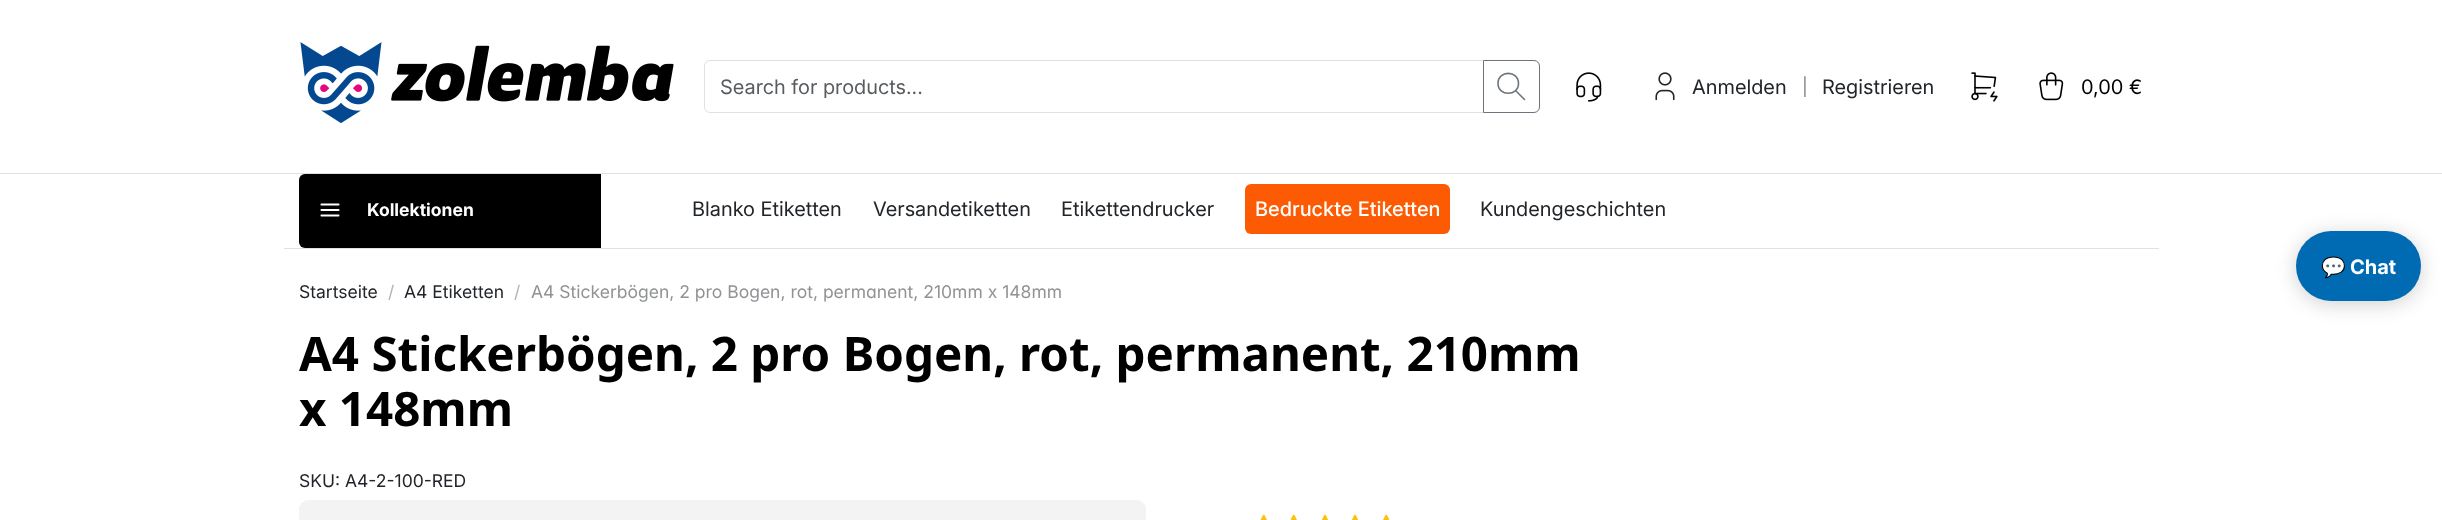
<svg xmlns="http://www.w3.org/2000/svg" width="2442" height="520">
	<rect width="100%" height="100%" fill="#FFFFFF" />
	<rect x="0" y="173" width="2442" height="1" fill="#DEE2E6" />
	<image x="300" y="42" width="374" height="81" href="assets/img1.png" />
	<path d="M710 60.5H1483.5V112.5H710C707 112.5 704.5 110 704.5 107V66C704.5 63 707 60.5 710 60.5Z" fill="none" stroke="#DEE2E6" />
	<text x="720" y="94" font-family="Inter" font-size="20" fill="#595C5F">Search for products...</text>
	<path d="M1483.5 60.5H1534C1537 60.5 1539.5 63 1539.5 66V107C1539.5 110 1537 112.5 1534 112.5H1483.5Z" fill="none" stroke="#6C757D" />
	<path d="M1498 83.5C1498 96.5 1518.5 96.5 1518.5 83.5C1518.5 70 1498 70 1498 83.5M1524.5 99.5L1515.5 90.5" fill="none" stroke="#6C757D" stroke-width="1.6" stroke-linecap="round" stroke-linejoin="round" />
	<image x="1576" y="72" width="26" height="30" href="assets/img2.png" />
	<image x="1655" y="72" width="20" height="29" href="assets/img3.png" />
	<text x="1692" y="94" font-family="Inter" font-size="20" fill="#212529">Anmelden</text>
	<text x="1802" y="93" font-family="'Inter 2'" font-size="17.5" fill="#808080">|</text>
	<text x="1822" y="94" font-family="Inter" font-size="20" fill="#212529">Registrieren</text>
	<image x="1971" y="72" width="27" height="30" href="assets/img4.png" />
	<image x="2039" y="72" width="25" height="29" href="assets/img5.png" />
	<text x="2081" y="94" font-family="Inter" font-size="20" fill="#000000">0,00 €</text>
	<rect x="284" y="248" width="1875" height="1" fill="#DEE2E6" />
	<path d="M330 174H601V248H330C313 248 299 234 299 217V205C299 188 313 174 330 174Z" fill="#000000" />
	<rect x="299" y="174" width="302" height="74" rx="6" fill="#000000" />
	<path d="M321.5 204.5H338.5M321.5 210H338.5M321.5 215.5H338.5" fill="none" stroke="#FFFFFF" stroke-width="2.1" stroke-linecap="round" stroke-linejoin="round" />
	<text x="367" y="216" font-family="Inter" font-size="17.5" font-weight="700" fill="#FFFFFF">Kollektionen</text>
	<g font-family="Inter" font-size="20" fill="#212529">
		<text x="692" y="216">Blanko Etiketten</text>
		<text x="873" y="216">Versandetiketten</text>
		<text x="1061" y="216">Etikettendrucker</text>
	</g>
	<rect x="1245" y="184" width="205" height="50" rx="6" fill="#FD5B03" />
	<text x="1255" y="216" font-family="Inter" font-size="20" font-weight="500" fill="#FFFFFF">Bedruckte Etiketten</text>
	<text x="1480" y="216" font-family="Inter" font-size="20" fill="#212529">Kundengeschichten</text>
	<text x="299" y="298" font-family="'Inter 2'" font-size="17.5" fill="#212529">Startseite</text>
	<text x="388" y="298" font-family="'Inter 2'" font-size="17.5" fill="#ADB5BD">/</text>
	<text x="404" y="298" font-family="'Inter 2'" font-size="17.5" fill="#212529">A4 Etiketten</text>
	<text x="514" y="298" font-family="'Inter 2'" font-size="17.5" fill="#ADB5BD">/</text>
	<text x="531" y="298" font-family="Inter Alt" font-size="17.5" fill="#909294">A4 Stickerbögen, 2 pro Bogen, rot, permanent, 210mm x 148mm</text>
	<g font-family="Noto Sans" font-size="47.5" font-weight="700" fill="#000000">
		<text x="299" y="371">A4 Stickerbögen, 2 pro Bogen, rot, permanent, 210mm</text>
		<text x="299" y="426">x 148mm</text>
	</g>
	<text x="299" y="487" font-family="'Inter 2'" font-size="17.5" fill="#212529">SKU: A4-2-100-RED</text>
	<image x="299" y="500" width="847" height="20" href="assets/img6.png" />
	<image x="1260" y="514" width="7" height="6" href="assets/img7.png" />
	<image x="1290" y="514" width="7" height="6" href="assets/img7.png" />
	<image x="1321" y="514" width="8" height="6" href="assets/img8.png" />
	<image x="1351" y="514" width="8" height="6" href="assets/img8.png" />
	<image x="1383" y="514" width="7" height="6" href="assets/img9.png" />
	<rect x="2296" y="234" width="125" height="70" rx="35" fill="#000000" fill-opacity="0.18" filter="blur(10px)" />
	<rect x="2296" y="231" width="125" height="70" rx="35" fill="#006BB3" />
	<text x="2321" y="274" font-family="Noto Color Emoji" font-size="20" font-weight="700" fill="#FFFFFF">💬</text>
	<text x="2350" y="274" font-family="Inter" font-size="20" font-weight="700" fill="#FFFFFF">Chat</text>
</svg>
